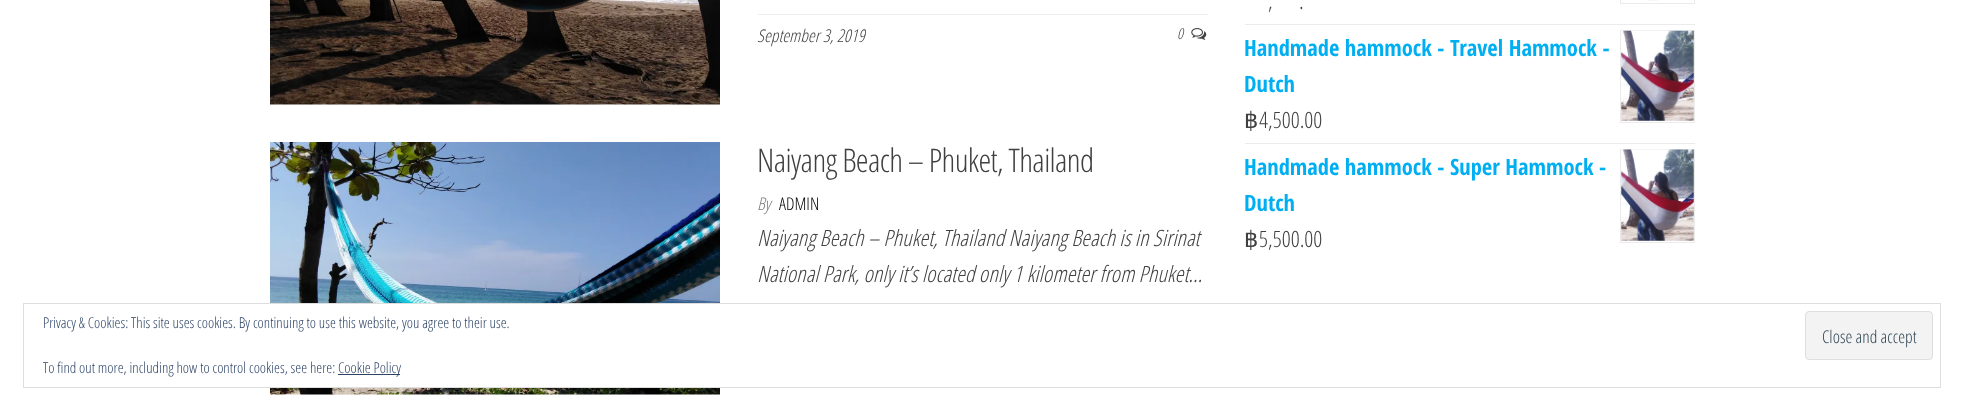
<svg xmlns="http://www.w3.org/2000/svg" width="1963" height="410">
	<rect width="100%" height="100%" fill="#FFFFFF" />
	<image x="270" y="0" width="450" height="105" href="assets/img1.png" />
	<rect x="758" y="14" width="450" height="1" fill="#EEEEEE" />
	<text x="757" y="42" font-family="Open Sans Condensed" font-size="17.5" font-weight="300" font-style="italic" fill="#404040">September 3, 2019</text>
	<text x="1177" y="39" font-family="Open Sans Condensed" font-size="15" font-weight="300" font-style="italic" fill="#404040">0</text>
	<image x="1191" y="28" width="16" height="12" href="assets/img2.png" />
	<image x="270" y="142" width="450" height="253" href="assets/img3.png" />
	<text x="757" y="172" font-family="Open Sans Condensed" font-size="32.5" font-weight="300" letter-spacing="-0.65" fill="#404040">Naiyang Beach – Phuket, Thailand</text>
	<text x="757" y="210" font-family="Open Sans Condensed" font-size="17.5" font-weight="300" font-style="italic" fill="#797979">By</text>
	<text x="779" y="210" font-family="Open Sans Condensed" font-size="17.5" font-weight="300" fill="#000000">ADMIN</text>
	<g font-family="Open Sans Condensed" font-size="22.5" font-weight="300" font-style="italic" fill="#404040">
		<text x="757" y="246">Naiyang Beach – Phuket, Thailand Naiyang Beach is in Sirinat</text>
		<text x="757" y="282">National Park, only it’s located only 1 kilometer from Phuket…</text>
	</g>
	<rect x="1245" y="24" width="450" height="1" fill="#EBEBEB" />
	<rect x="1620.5" y="-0.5" width="74" height="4" fill="none" stroke="#EBEBEB" />
	<image x="1647" y="0" width="12" height="1" href="assets/img4.png" />
	<g font-family="Open Sans Condensed" font-size="22.5" font-weight="300" fill="#404040">
		<text x="1268" y="9">,</text>
		<text x="1299" y="9">.</text>
	</g>
	<rect x="1245" y="143" width="450" height="1" fill="#EBEBEB" />
	<text x="1244" y="56" font-family="Open Sans Condensed" font-size="22.5" font-weight="700" fill="#00AFF2">Handmade hammock - Travel Hammock -</text>
	<rect x="1620.5" y="30.5" width="74" height="92" fill="none" stroke="#EBEBEB" />
	<image x="1621" y="30" width="73" height="91" href="assets/img5.png" />
	<text x="1244" y="92" font-family="Open Sans Condensed" font-size="22.5" font-weight="700" fill="#00AFF2">Dutch</text>
	<text x="1244" y="128" font-family="DejaVu Sans" font-size="22.5" fill="#404040">฿</text>
	<text x="1259" y="128" font-family="Open Sans Condensed" font-size="22.5" font-weight="300" fill="#404040">4,500.00</text>
	<text x="1244" y="175" font-family="Open Sans Condensed" font-size="22.5" font-weight="700" fill="#00AFF2">Handmade hammock - Super Hammock -</text>
	<rect x="1620.5" y="149.5" width="74" height="93" fill="none" stroke="#EBEBEB" />
	<image x="1621" y="149" width="73" height="92" href="assets/img6.png" />
	<text x="1244" y="211" font-family="Open Sans Condensed" font-size="22.5" font-weight="700" fill="#00AFF2">Dutch</text>
	<text x="1244" y="247" font-family="DejaVu Sans" font-size="22.5" fill="#404040">฿</text>
	<text x="1259" y="247" font-family="Open Sans Condensed" font-size="22.5" font-weight="300" fill="#404040">5,500.00</text>
	<rect x="270" y="304" width="450" height="83" fill="#FFFFFF" />
	<rect x="23.5" y="303.5" width="1917" height="84" fill="none" stroke="#DEDEDE" />
	<text x="43" y="328" font-family="Open Sans Condensed" font-size="15" font-weight="300" fill="#2E4467">Privacy &amp; Cookies: This site uses cookies. By continuing to use this website, you agree to their use.</text>
	<rect x="1805.5" y="311.5" width="127" height="48" rx="3.5" fill="#F3F3F3" stroke="#DEDEDE" />
	<text x="1822" y="343" font-family="Open Sans Condensed" font-size="17.5" font-weight="300" fill="#2E4453">Close and accept</text>
	<text x="43" y="373" font-family="Open Sans Condensed" font-size="15" font-weight="300" fill="#2E4467">To find out more, including how to control cookies, see here:</text>
	<rect x="338" y="374" width="62" height="1" fill="#2E4467" />
	<text x="338" y="373" font-family="Open Sans Condensed" font-size="15" font-weight="300" fill="#2E4467">Cookie Policy</text>
</svg>
